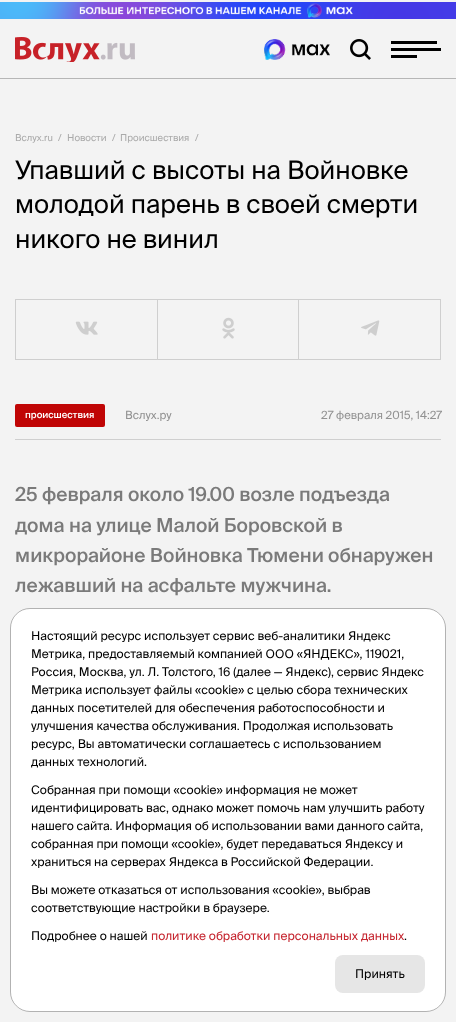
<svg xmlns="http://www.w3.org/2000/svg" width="456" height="1022">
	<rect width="100%" height="100%" fill="#F3F3F3" />
	<image x="0" y="2" width="456" height="17" href="assets/img1.png" />
	<image x="15" y="37" width="120" height="25" href="assets/img2.png" />
	<image x="264" y="39" width="66" height="21" href="assets/img3.png" />
	<image x="350" y="39" width="21" height="21" href="assets/img4.png" />
	<rect x="391" y="48" width="50" height="3" fill="#000000" />
	<rect x="391" y="41" width="46" height="3" fill="#000000" />
	<rect x="391" y="55" width="26" height="3" fill="#000000" />
	<rect x="0" y="78" width="456" height="1" fill="#B6B6B6" />
	<g font-family="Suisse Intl" font-size="9.5" fill="#AAAAAA">
		<text x="15" y="141">Вслух.ru</text>
		<text x="58" y="141">/</text>
		<text x="67" y="141">Новости</text>
		<text x="112" y="141">/</text>
		<text x="120" y="141">Происшествия</text>
		<text x="195" y="141">/</text>
	</g>
	<g font-family="Suisse Intl" font-size="25.6" fill="#000000">
		<text x="15" y="179">Упавший с высоты на Войновке</text>
		<text x="15" y="213">молодой парень в своей смерти</text>
		<text x="15" y="248">никого не винил</text>
	</g>
	<path d="M15 299H441V300H16Z" fill="#CFCFCF" />
	<path d="M15 360V299L16 300V360Z" fill="#000000" fill-opacity="0.15" />
	<path d="M158 300V360L157 359V300Z" fill="#CFCFCF" />
	<path d="M158 360H16V359H157Z" fill="#000000" fill-opacity="0.15" />
	<image x="75" y="321" width="23" height="14" href="assets/img5.png" />
	<path d="M299 300V360L298 359V300Z" fill="#CFCFCF" />
	<path d="M299 360H158V359H298Z" fill="#000000" fill-opacity="0.15" />
	<image x="222" y="317" width="13" height="22" href="assets/img6.png" />
	<path d="M441 300V360L440 359V300Z" fill="#CFCFCF" />
	<path d="M441 360H299V359H440Z" fill="#000000" fill-opacity="0.15" />
	<image x="361" y="320" width="19" height="16" href="assets/img7.png" />
	<rect x="15" y="439" width="426" height="1" fill="#CFCFCF" />
	<rect x="15" y="404" width="90" height="23" rx="2" fill="#C00505" />
	<text x="25" y="418" font-family="Suisse Intl" font-size="9.5" font-weight="500" fill="#FFFFFF">происшествия</text>
	<g font-family="Suisse Intl" font-size="11.25" fill="#929292">
		<text x="125" y="419">Вслух.ру</text>
		<text x="321" y="419">27 февраля 2015, 14:27</text>
	</g>
	<g font-family="Suisse Intl" font-size="19.2" font-weight="500" fill="#7A7A7A">
		<text x="15" y="501">25 февраля около 19.00 возле подъезда</text>
		<text x="15" y="532">дома на улице Малой Боровской в</text>
		<text x="15" y="562">микрорайоне Войновка Тюмени обнаружен</text>
		<text x="15" y="592">лежавший на асфальте мужчина.</text>
	</g>
	<rect x="10" y="608" width="436" height="404" rx="20" fill="#FFFFFF" />
	<rect x="10.5" y="608.5" width="435" height="403" rx="19.5" fill="none" stroke="#000000" stroke-opacity="0.3" />
	<g font-family="Suisse Intl" font-size="12" fill="#000000">
		<text x="31" y="640">Настоящий ресурс использует сервис веб-аналитики Яндекс</text>
		<text x="31" y="658">Метрика, предоставляемый компанией ООО «ЯНДЕКС», 119021,</text>
		<text x="31" y="676">Россия, Москва, ул. Л. Толстого, 16 (далее — Яндекс), сервис Яндекс</text>
		<text x="31" y="694">Метрика использует файлы «cookie» с целью сбора технических</text>
		<text x="31" y="712">данных посетителей для обеспечения работоспособности и</text>
		<text x="31" y="730">улучшения качества обслуживания. Продолжая использовать</text>
		<text x="31" y="748">ресурс, Вы автоматически соглашаетесь с использованием</text>
		<text x="31" y="766">данных технологий.</text>
		<text x="31" y="794">Собранная при помощи «cookie» информация не может</text>
		<text x="31" y="812">идентифицировать вас, однако может помочь нам улучшить работу</text>
		<text x="31" y="830">нашего сайта. Информация об использовании вами данного сайта,</text>
		<text x="31" y="848">собранная при помощи «cookie», будет передаваться Яндексу и</text>
		<text x="31" y="866">храниться на серверах Яндекса в Российской Федерации.</text>
		<text x="31" y="894">Вы можете отказаться от использования «cookie», выбрав</text>
		<text x="31" y="912">соответствующие настройки в браузере.</text>
		<text x="31" y="940">Подробнее о нашей</text>
	</g>
	<text x="151" y="940" font-family="Suisse Intl" font-size="12" fill="#C5242E">политике обработки персональных данных</text>
	<text x="404" y="940" font-family="Suisse Intl" font-size="12" fill="#000000">.</text>
	<rect x="335" y="955" width="90" height="38" rx="8" fill="#E6E6E6" />
	<text x="355" y="978" font-family="Suisse Intl" font-size="12" fill="#000000">Принять</text>
</svg>
